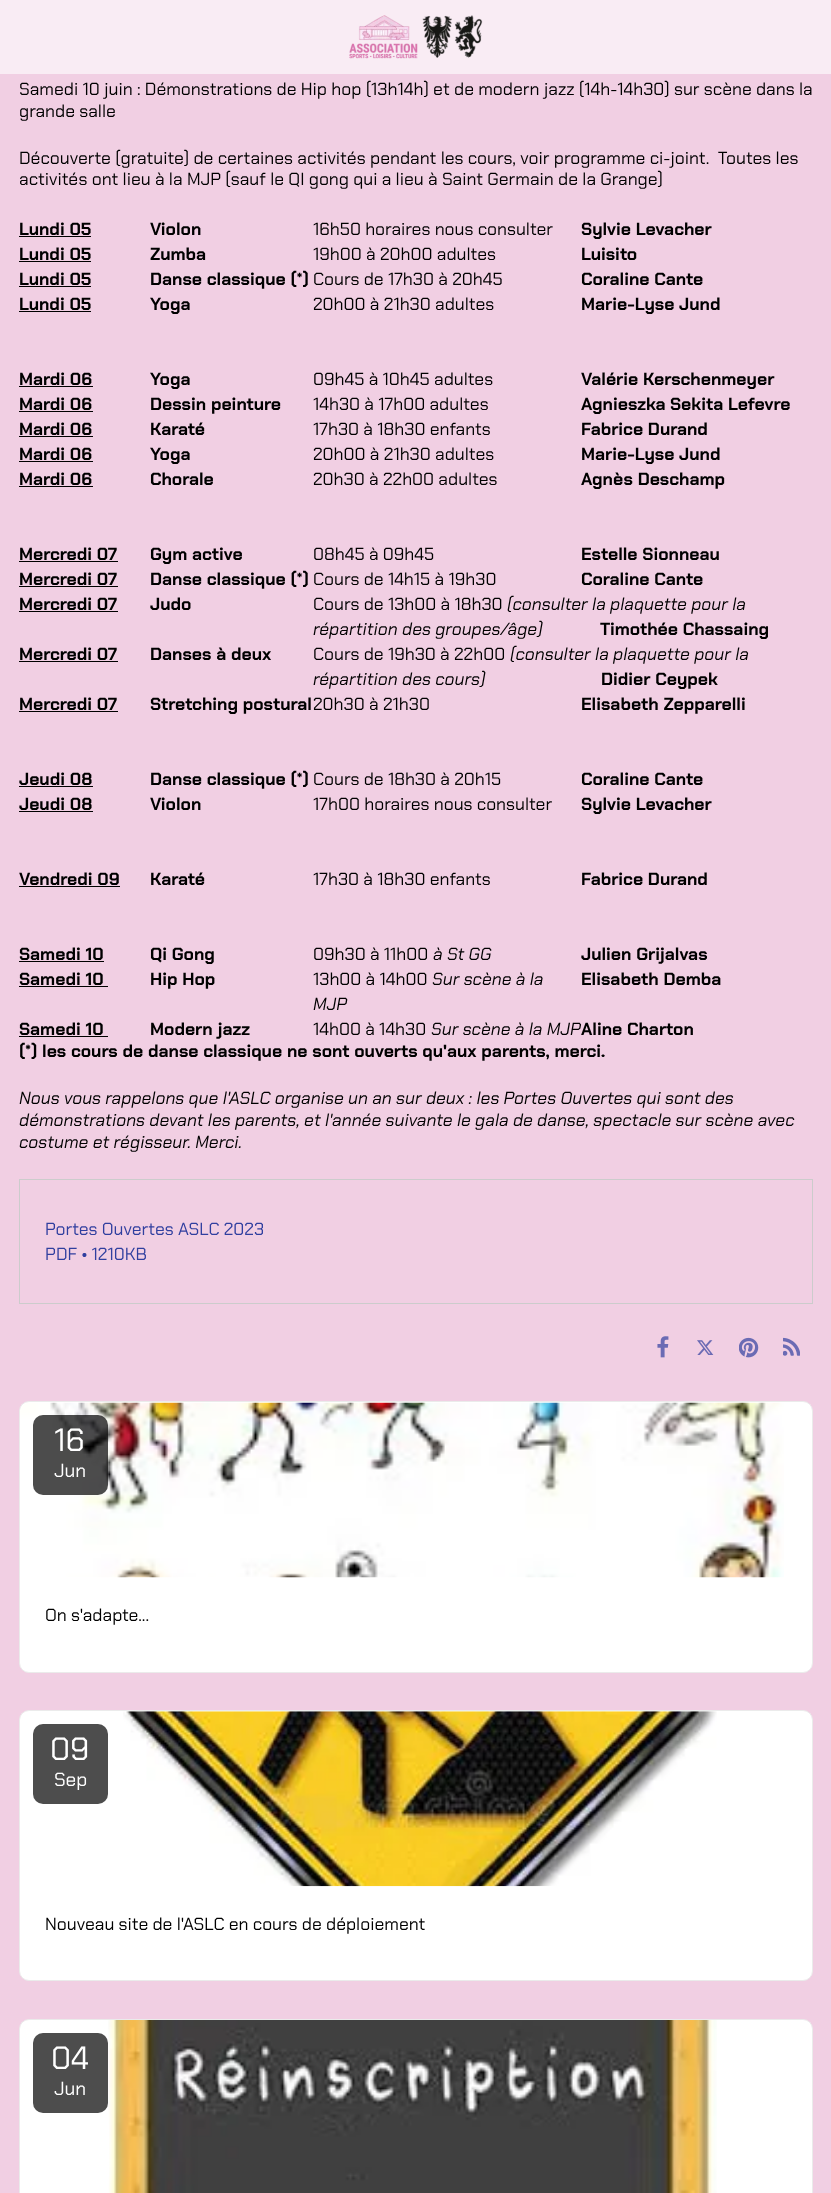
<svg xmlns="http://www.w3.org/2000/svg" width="831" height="2193">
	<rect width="100%" height="100%" fill="#F1CFE3" />
	<rect x="0" y="0" width="831" height="74" fill="#F9ECF4" />
	<image x="349" y="15" width="134" height="44" href="assets/img1.png" />
	<g font-family="Chakra Petch" font-size="17.5" fill="#000000">
		<text x="19" y="95">Samedi 10 juin : Démonstrations de Hip hop (13h14h) et de modern jazz (14h-14h30) sur scène dans la</text>
		<text x="19" y="117">grande salle</text>
		<text x="19" y="164" xml:space="preserve">Découverte (gratuite) de certaines activités pendant les cours, voir programme ci-joint.  Toutes les</text>
		<text x="19" y="185">activités ont lieu à la MJP (sauf le QI gong qui a lieu à Saint Germain de la Grange)</text>
	</g>
	<text x="19" y="235" font-family="Chakra Petch" font-size="17.5" font-weight="700" fill="#000000">Lundi 05</text>
	<rect x="19" y="236" width="72" height="1" fill="#000000" />
	<text x="150" y="235" font-family="Chakra Petch" font-size="17.5" font-weight="700" fill="#000000">Violon</text>
	<text x="313" y="235" font-family="Chakra Petch" font-size="17.5" fill="#000000">16h50 horaires nous consulter</text>
	<g font-family="Chakra Petch" font-size="17.5" font-weight="700" fill="#000000">
		<text x="581" y="235">Sylvie Levacher</text>
		<text x="19" y="260">Lundi 05</text>
	</g>
	<rect x="19" y="261" width="72" height="1" fill="#000000" />
	<text x="150" y="260" font-family="Chakra Petch" font-size="17.5" font-weight="700" fill="#000000">Zumba</text>
	<text x="313" y="260" font-family="Chakra Petch" font-size="17.5" fill="#000000">19h00 à 20h00 adultes</text>
	<g font-family="Chakra Petch" font-size="17.5" font-weight="700" fill="#000000">
		<text x="581" y="260">Luisito</text>
		<text x="19" y="285">Lundi 05</text>
	</g>
	<rect x="19" y="286" width="72" height="1" fill="#000000" />
	<text x="150" y="285" font-family="Chakra Petch" font-size="17.5" font-weight="700" fill="#000000">Danse classique (*)</text>
	<text x="313" y="285" font-family="Chakra Petch" font-size="17.5" fill="#000000">Cours de 17h30 à 20h45</text>
	<g font-family="Chakra Petch" font-size="17.5" font-weight="700" fill="#000000">
		<text x="581" y="285">Coraline Cante</text>
		<text x="19" y="310">Lundi 05</text>
	</g>
	<rect x="19" y="311" width="72" height="1" fill="#000000" />
	<text x="150" y="310" font-family="Chakra Petch" font-size="17.5" font-weight="700" fill="#000000">Yoga</text>
	<text x="313" y="310" font-family="Chakra Petch" font-size="17.5" fill="#000000">20h00 à 21h30 adultes</text>
	<g font-family="Chakra Petch" font-size="17.5" font-weight="700" fill="#000000">
		<text x="581" y="310">Marie-Lyse Jund</text>
		<text x="19" y="385">Mardi 06</text>
	</g>
	<rect x="19" y="386" width="74" height="1" fill="#000000" />
	<text x="150" y="385" font-family="Chakra Petch" font-size="17.5" font-weight="700" fill="#000000">Yoga</text>
	<text x="313" y="385" font-family="Chakra Petch" font-size="17.5" fill="#000000">09h45 à 10h45 adultes</text>
	<g font-family="Chakra Petch" font-size="17.5" font-weight="700" fill="#000000">
		<text x="581" y="385">Valérie Kerschenmeyer</text>
		<text x="19" y="410">Mardi 06</text>
	</g>
	<rect x="19" y="411" width="74" height="1" fill="#000000" />
	<text x="150" y="410" font-family="Chakra Petch" font-size="17.5" font-weight="700" fill="#000000">Dessin peinture</text>
	<text x="313" y="410" font-family="Chakra Petch" font-size="17.5" fill="#000000">14h30 à 17h00 adultes</text>
	<g font-family="Chakra Petch" font-size="17.5" font-weight="700" fill="#000000">
		<text x="581" y="410">Agnieszka</text>
		<text x="670" y="410">Sekita Lefevre</text>
		<text x="19" y="435">Mardi 06</text>
	</g>
	<rect x="19" y="436" width="74" height="1" fill="#000000" />
	<text x="150" y="435" font-family="Chakra Petch" font-size="17.5" font-weight="700" fill="#000000">Karaté</text>
	<text x="313" y="435" font-family="Chakra Petch" font-size="17.5" fill="#000000">17h30 à 18h30 enfants</text>
	<g font-family="Chakra Petch" font-size="17.5" font-weight="700" fill="#000000">
		<text x="581" y="435">Fabrice Durand</text>
		<text x="19" y="460">Mardi 06</text>
	</g>
	<rect x="19" y="461" width="74" height="1" fill="#000000" />
	<text x="150" y="460" font-family="Chakra Petch" font-size="17.5" font-weight="700" fill="#000000">Yoga</text>
	<text x="313" y="460" font-family="Chakra Petch" font-size="17.5" fill="#000000">20h00 à 21h30 adultes</text>
	<g font-family="Chakra Petch" font-size="17.5" font-weight="700" fill="#000000">
		<text x="581" y="460">Marie-Lyse Jund</text>
		<text x="19" y="485">Mardi 06</text>
	</g>
	<rect x="19" y="486" width="74" height="1" fill="#000000" />
	<text x="150" y="485" font-family="Chakra Petch" font-size="17.5" font-weight="700" fill="#000000">Chorale</text>
	<text x="313" y="485" font-family="Chakra Petch" font-size="17.5" fill="#000000">20h30 à 22h00 adultes</text>
	<g font-family="Chakra Petch" font-size="17.5" font-weight="700" fill="#000000">
		<text x="581" y="485">Agnès Deschamp</text>
		<text x="19" y="560">Mercredi 07</text>
	</g>
	<rect x="19" y="561" width="99" height="1" fill="#000000" />
	<text x="150" y="560" font-family="Chakra Petch" font-size="17.5" font-weight="700" fill="#000000">Gym active</text>
	<text x="313" y="560" font-family="Chakra Petch" font-size="17.5" fill="#000000">08h45 à 09h45</text>
	<g font-family="Chakra Petch" font-size="17.5" font-weight="700" fill="#000000">
		<text x="581" y="560">Estelle Sionneau</text>
		<text x="19" y="585">Mercredi 07</text>
	</g>
	<rect x="19" y="586" width="99" height="1" fill="#000000" />
	<text x="150" y="585" font-family="Chakra Petch" font-size="17.5" font-weight="700" fill="#000000">Danse classique (*)</text>
	<text x="313" y="585" font-family="Chakra Petch" font-size="17.5" fill="#000000">Cours de 14h15 à 19h30</text>
	<g font-family="Chakra Petch" font-size="17.5" font-weight="700" fill="#000000">
		<text x="581" y="585">Coraline Cante</text>
		<text x="19" y="610">Mercredi 07</text>
	</g>
	<rect x="19" y="611" width="99" height="1" fill="#000000" />
	<text x="150" y="610" font-family="Chakra Petch" font-size="17.5" font-weight="700" fill="#000000">Judo</text>
	<text x="313" y="610" font-family="Chakra Petch" font-size="17.5" fill="#000000">Cours de 13h00 à 18h30</text>
	<g font-family="Chakra Petch" font-size="17.5" font-style="italic" fill="#000000">
		<text x="507" y="610">(consulter la plaquette pour la</text>
		<text x="313" y="635">répartition des groupes/âge)</text>
	</g>
	<g font-family="Chakra Petch" font-size="17.5" font-weight="700" fill="#000000">
		<text x="600" y="635">Timothée Chassaing</text>
		<text x="19" y="660">Mercredi 07</text>
	</g>
	<rect x="19" y="661" width="99" height="1" fill="#000000" />
	<text x="150" y="660" font-family="Chakra Petch" font-size="17.5" font-weight="700" fill="#000000">Danses à deux</text>
	<text x="313" y="660" font-family="Chakra Petch" font-size="17.5" fill="#000000">Cours de 19h30 à 22h00</text>
	<g font-family="Chakra Petch" font-size="17.5" font-style="italic" fill="#000000">
		<text x="510" y="660">(consulter la plaquette pour la</text>
		<text x="313" y="685">répartition des cours)</text>
	</g>
	<g font-family="Chakra Petch" font-size="17.5" font-weight="700" fill="#000000">
		<text x="601" y="685">Didier Ceypek</text>
		<text x="19" y="710">Mercredi 07</text>
	</g>
	<rect x="19" y="711" width="99" height="1" fill="#000000" />
	<text x="150" y="710" font-family="Chakra Petch" font-size="17.5" font-weight="700" fill="#000000">Stretching postural</text>
	<text x="313" y="710" font-family="Chakra Petch" font-size="17.5" fill="#000000">20h30 à 21h30</text>
	<g font-family="Chakra Petch" font-size="17.5" font-weight="700" fill="#000000">
		<text x="581" y="710">Elisabeth Zepparelli</text>
		<text x="19" y="785">Jeudi 08</text>
	</g>
	<rect x="19" y="786" width="74" height="1" fill="#000000" />
	<text x="150" y="785" font-family="Chakra Petch" font-size="17.5" font-weight="700" fill="#000000">Danse classique (*)</text>
	<text x="313" y="785" font-family="Chakra Petch" font-size="17.5" fill="#000000">Cours de 18h30 à 20h15</text>
	<g font-family="Chakra Petch" font-size="17.5" font-weight="700" fill="#000000">
		<text x="581" y="785">Coraline Cante</text>
		<text x="19" y="810">Jeudi 08</text>
	</g>
	<rect x="19" y="811" width="74" height="1" fill="#000000" />
	<text x="150" y="810" font-family="Chakra Petch" font-size="17.5" font-weight="700" fill="#000000">Violon</text>
	<text x="313" y="810" font-family="Chakra Petch" font-size="17.5" fill="#000000">17h00 horaires nous consulter</text>
	<g font-family="Chakra Petch" font-size="17.5" font-weight="700" fill="#000000">
		<text x="581" y="810">Sylvie Levacher</text>
		<text x="19" y="885">Vendredi 09</text>
	</g>
	<rect x="19" y="886" width="101" height="1" fill="#000000" />
	<text x="150" y="885" font-family="Chakra Petch" font-size="17.5" font-weight="700" fill="#000000">Karaté</text>
	<text x="313" y="885" font-family="Chakra Petch" font-size="17.5" fill="#000000">17h30 à 18h30 enfants</text>
	<g font-family="Chakra Petch" font-size="17.5" font-weight="700" fill="#000000">
		<text x="581" y="885">Fabrice Durand</text>
		<text x="19" y="960">Samedi 10</text>
	</g>
	<rect x="19" y="961" width="85" height="1" fill="#000000" />
	<text x="150" y="960" font-family="Chakra Petch" font-size="17.5" font-weight="700" fill="#000000">Qi Gong</text>
	<text x="313" y="960" font-family="Chakra Petch" font-size="17.5" fill="#000000">09h30 à 11h00</text>
	<text x="433" y="960" font-family="Chakra Petch" font-size="17.5" font-style="italic" fill="#000000">à St GG</text>
	<g font-family="Chakra Petch" font-size="17.5" font-weight="700" fill="#000000">
		<text x="581" y="960">Julien Grijalvas</text>
		<text x="19" y="985">Samedi 10</text>
	</g>
	<rect x="19" y="986" width="89" height="1" fill="#000000" />
	<text x="150" y="985" font-family="Chakra Petch" font-size="17.5" font-weight="700" fill="#000000">Hip Hop</text>
	<text x="313" y="985" font-family="Chakra Petch" font-size="17.5" fill="#000000">13h00 à 14h00</text>
	<g font-family="Chakra Petch" font-size="17.5" font-style="italic" fill="#000000">
		<text x="432" y="985">Sur scène à la</text>
		<text x="313" y="1010">MJP</text>
	</g>
	<g font-family="Chakra Petch" font-size="17.5" font-weight="700" fill="#000000">
		<text x="581" y="985">Elisabeth Demba</text>
		<text x="19" y="1035">Samedi 10</text>
	</g>
	<rect x="19" y="1036" width="89" height="1" fill="#000000" />
	<text x="150" y="1035" font-family="Chakra Petch" font-size="17.5" font-weight="700" fill="#000000">Modern jazz</text>
	<text x="313" y="1035" font-family="Chakra Petch" font-size="17.5" fill="#000000">14h00 à 14h30</text>
	<text x="431" y="1035" font-family="Chakra Petch" font-size="17.5" font-style="italic" fill="#000000">Sur scène à la MJP</text>
	<g font-family="Chakra Petch" font-size="17.5" font-weight="700" fill="#000000">
		<text x="581" y="1035">Aline Charton</text>
		<text x="19" y="1057">(*) les cours de danse classique ne sont ouverts qu'aux parents, merci.</text>
	</g>
	<g font-family="Chakra Petch" font-size="17.5" font-style="italic" fill="#000000">
		<text x="19" y="1104">Nous vous rappelons que l'ASLC organise un an sur deux : les Portes Ouvertes qui sont des</text>
		<text x="19" y="1126">démonstrations devant les parents, et l'année suivante le gala de danse, spectacle sur scène avec</text>
		<text x="19" y="1148">costume et régisseur. Merci.</text>
	</g>
	<rect x="19.5" y="1179.5" width="793" height="124" fill="none" stroke="#CCCCCC" />
	<g font-family="Chakra Petch" font-size="17.5" fill="#303F9F">
		<text x="45" y="1235">Portes Ouvertes ASLC 2023</text>
		<text x="45" y="1260">PDF • 1210KB</text>
	</g>
	<image x="657" y="1336" width="12" height="22" href="assets/img2.png" />
	<image x="697" y="1340" width="17" height="15" href="assets/img3.png" />
	<image x="739" y="1337" width="20" height="21" href="assets/img4.png" />
	<image x="783" y="1337" width="17" height="19" href="assets/img5.png" />
	<rect x="19.5" y="1401.5" width="793" height="271" rx="9.5" fill="#FFFFFF" stroke="#EBEBEB" />
	<image x="20" y="1402" width="764" height="176" href="assets/img6.png" />
	<rect x="33" y="1415" width="75" height="80" rx="10" fill="#000000" fill-opacity="0.7" />
	<text x="54" y="1451" font-family="Chakra Petch" font-size="32" fill="#FFFFFF">16</text>
	<text x="54" y="1477" font-family="Chakra Petch" font-size="19" fill="#FFFFFF">Jun</text>
	<text x="45" y="1621" font-family="Chakra Petch" font-size="17.5" fill="#000000">On s'adapte...</text>
	<rect x="19.5" y="1710.5" width="793" height="270" rx="9.5" fill="#FFFFFF" stroke="#EBEBEB" />
	<rect x="33" y="1724" width="75" height="80" rx="10" fill="#4D4D4D" />
	<text x="50" y="1760" font-family="Chakra Petch" font-size="32" fill="#FFFFFF">09</text>
	<text x="54" y="1786" font-family="Chakra Petch" font-size="19" fill="#FFFFFF">Sep</text>
	<image x="123" y="1711" width="594" height="176" href="assets/img7.png" />
	<text x="45" y="1930" font-family="Chakra Petch" font-size="17.5" fill="#000000">Nouveau site de l'ASLC en cours de déploiement</text>
	<rect x="19.5" y="2019.5" width="793" height="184" rx="9.5" fill="#FFFFFF" stroke="#EBEBEB" />
	<rect x="33" y="2033" width="75" height="80" rx="10" fill="#4D4D4D" />
	<text x="51" y="2069" font-family="Chakra Petch" font-size="32" fill="#FFFFFF">04</text>
	<text x="54" y="2095" font-family="Chakra Petch" font-size="19" fill="#FFFFFF">Jun</text>
	<image x="108" y="2020" width="609" height="173" href="assets/img8.png" />
</svg>
